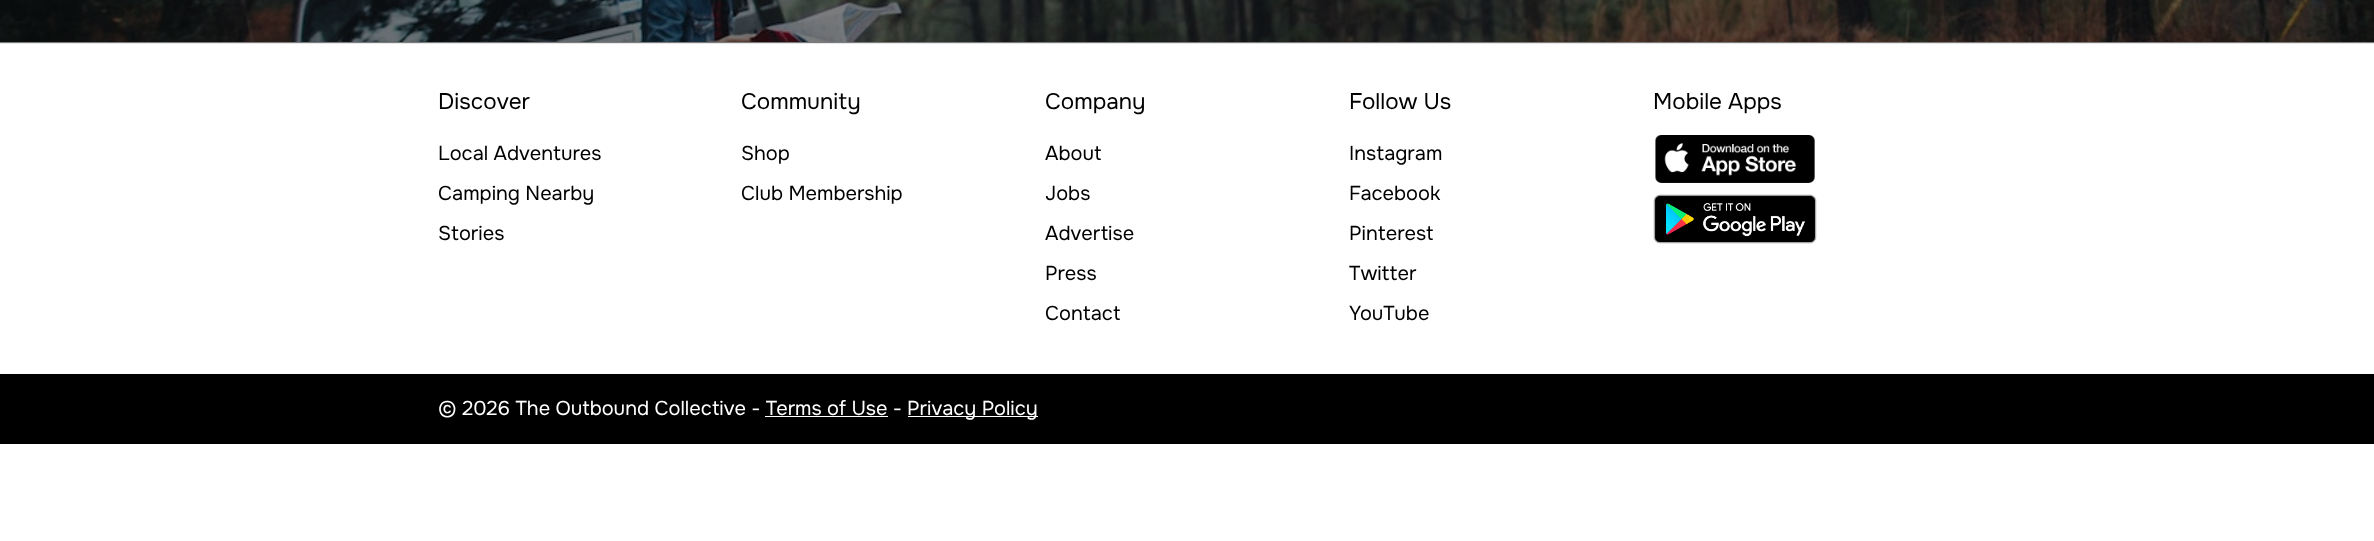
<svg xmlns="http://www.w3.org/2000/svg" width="2374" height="541">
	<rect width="100%" height="100%" fill="#FFFFFF" />
	<rect x="0" y="42" width="2374" height="1" fill="#7C7B79" />
	<image x="0" y="0" width="2374" height="42" href="assets/img1.png" />
	<rect x="0" y="43" width="2374" height="1" fill="#E5E7EB" />
	<text x="438" y="109" font-family="Onest" font-size="22.5" fill="#000000">Discover</text>
	<g font-family="Onest" font-size="20" fill="#000000">
		<text x="438" y="160">Local Adventures</text>
		<text x="438" y="200">Camping Nearby</text>
		<text x="438" y="240">Stories</text>
	</g>
	<text x="741" y="109" font-family="Onest" font-size="22.5" fill="#000000">Community</text>
	<g font-family="Onest" font-size="20" fill="#000000">
		<text x="741" y="160">Shop</text>
		<text x="741" y="200">Club Membership</text>
	</g>
	<text x="1045" y="109" font-family="Onest" font-size="22.5" fill="#000000">Company</text>
	<g font-family="Onest" font-size="20" fill="#000000">
		<text x="1045" y="160">About</text>
		<text x="1045" y="200">Jobs</text>
		<text x="1045" y="240">Advertise</text>
		<text x="1045" y="280">Press</text>
		<text x="1045" y="320">Contact</text>
	</g>
	<text x="1349" y="109" font-family="Onest" font-size="22.5" fill="#000000">Follow Us</text>
	<g font-family="Onest" font-size="20" fill="#000000">
		<text x="1349" y="160">Instagram</text>
		<text x="1349" y="200">Facebook</text>
		<text x="1349" y="240">Pinterest</text>
		<text x="1349" y="280">Twitter</text>
		<text x="1349" y="320">YouTube</text>
	</g>
	<text x="1653" y="109" font-family="Onest" font-size="22.5" fill="#000000">Mobile Apps</text>
	<image x="1655" y="135" width="160" height="48" href="assets/img2.png" />
	<image x="1653" y="194" width="164" height="50" href="assets/img3.png" />
	<rect x="0" y="374" width="2374" height="70" fill="#000000" />
	<text x="438" y="415" font-family="Onest" font-size="20" fill="#FFFFFF">© 2026 The Outbound Collective - Terms of Use -</text>
	<rect x="908" y="416" width="130" height="1" fill="#FFFFFF" />
	<text x="907" y="415" font-family="Onest" font-size="20" fill="#FFFFFF">Privacy Policy</text>
	<rect x="765" y="416" width="123" height="1" fill="#FFFFFF" />
</svg>
